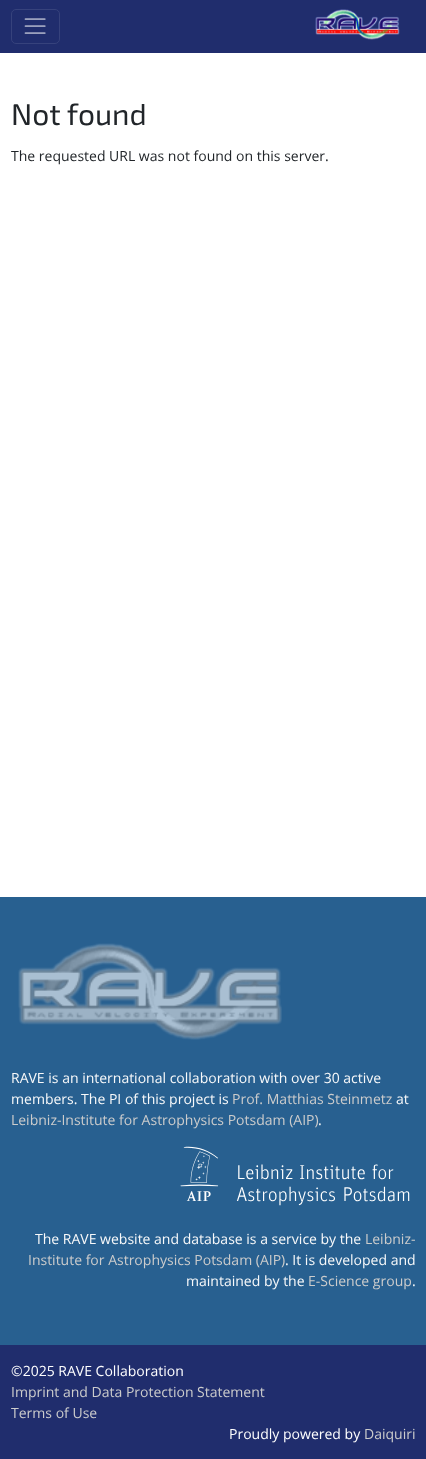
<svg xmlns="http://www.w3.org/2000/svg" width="426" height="1459">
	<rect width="100%" height="100%" fill="#FFFFFF" />
	<rect x="0" y="0" width="426" height="53" fill="#202D6D" />
	<rect x="11.5" y="9.5" width="48" height="34" rx="4.5" fill="none" stroke="#36427C" />
	<image x="24" y="18" width="22" height="16" href="assets/img1.png" />
	<image x="315" y="9" width="85" height="31" href="assets/img2.png" />
	<text x="11" y="125" font-family="'Exo 2'" font-size="30" fill="#212529">Not found</text>
	<text x="11" y="161" font-family="Open Sans" font-size="14" fill="#212529">The requested URL was not found on this server.</text>
	<rect x="0" y="897" width="426" height="448" fill="#286090" />
	<image x="18" y="943" width="264" height="97" href="assets/img3.png" />
	<g font-family="Open Sans" font-size="14" fill="#F8F9FA">
		<text x="11" y="1083">RAVE is an international collaboration with over 30 active</text>
		<text x="11" y="1104">members. The PI of this project is</text>
	</g>
	<text x="232" y="1104" font-family="Open Sans" font-size="14" fill="#CCCCCC">Prof. Matthias Steinmetz</text>
	<text x="396" y="1104" font-family="Open Sans" font-size="14" fill="#F8F9FA">at</text>
	<text x="11" y="1125" font-family="Open Sans" font-size="14" fill="#CCCCCC">Leibniz-Institute for Astrophysics Potsdam (AIP)</text>
	<text x="318" y="1125" font-family="Open Sans" font-size="14" fill="#F8F9FA">.</text>
	<image x="180" y="1146" width="230" height="60" href="assets/img4.png" />
	<text x="35" y="1244" font-family="Open Sans" font-size="14" fill="#F8F9FA">The RAVE website and database is a service by the</text>
	<g font-family="Open Sans" font-size="14" fill="#CCCCCC">
		<text x="365" y="1244">Leibniz-</text>
		<text x="28" y="1265">Institute for Astrophysics Potsdam (AIP)</text>
	</g>
	<g font-family="Open Sans" font-size="14" fill="#F8F9FA">
		<text x="285" y="1265">. It is developed and</text>
		<text x="186" y="1286">maintained by the</text>
	</g>
	<text x="308" y="1286" font-family="Open Sans" font-size="14" fill="#CCCCCC">E-Science group</text>
	<text x="412" y="1286" font-family="Open Sans" font-size="14" fill="#F8F9FA">.</text>
	<rect x="0" y="1345" width="426" height="114" fill="#202D6D" />
	<text x="11" y="1376" font-family="Open Sans" font-size="14" fill="#FFFFFF">©2025 RAVE Collaboration</text>
	<g font-family="Open Sans" font-size="14" fill="#CCCCCC">
		<text x="11" y="1397">Imprint and Data Protection Statement</text>
		<text x="11" y="1418">Terms of Use</text>
	</g>
	<text x="229" y="1439" font-family="Open Sans" font-size="14" fill="#FFFFFF">Proudly powered by</text>
	<text x="364" y="1439" font-family="Open Sans" font-size="14" fill="#CCCCCC">Daiquiri</text>
</svg>
